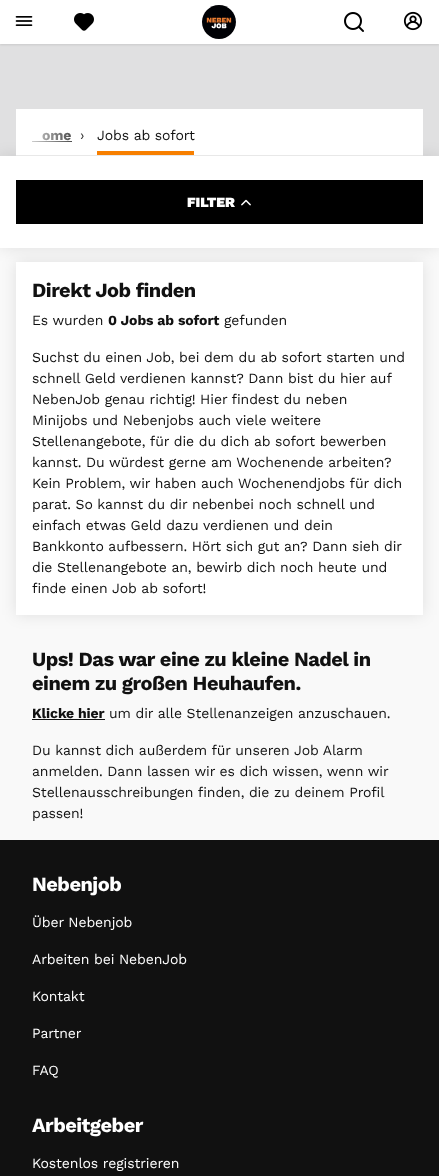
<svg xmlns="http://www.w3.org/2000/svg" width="439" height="1176">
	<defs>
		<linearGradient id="g1" gradientUnits="userSpaceOnUse" x1="16" y1="129" x2="91" y2="129"><stop offset="0" stop-color="#FFFFFF" /><stop offset="1" stop-color="#FFFFFF" stop-opacity="0" /></linearGradient>
	</defs>
	<rect width="100%" height="100%" fill="#F9F9F9" />
	<rect x="0" y="44" width="439" height="112" fill="#E0E0E1" />
	<rect x="0" y="1" width="439" height="44" fill="#000000" fill-opacity="0.1" filter="blur(1px)" />
	<rect x="0" y="0" width="439" height="44" fill="#FFFFFF" />
	<image x="15" y="16" width="18" height="10" href="assets/img1.png" />
	<image x="74" y="13" width="20" height="18" href="assets/img2.png" />
	<image x="202" y="5" width="34" height="34" href="assets/img3.png" />
	<image x="344" y="12" width="20" height="20" href="assets/img4.png" />
	<image x="403" y="11" width="20" height="20" href="assets/img5.png" />
	<rect x="16" y="262" width="407" height="353" fill="#000000" fill-opacity="0.1" filter="blur(7.5px)" />
	<rect x="16" y="262" width="407" height="353" fill="#FFFFFF" />
	<rect x="0" y="156" width="439" height="92" fill="#000000" fill-opacity="0.1" filter="blur(7.5px)" />
	<rect x="16" y="109" width="407" height="46" fill="#FFFFFF" />
	<rect x="16" y="155" width="407" height="1" fill="#E8E8E8" />
	<text x="42" y="140" font-family="Work Sans" font-size="14" font-weight="700" letter-spacing="-0.1" fill="#111111">ome</text>
	<rect x="32" y="141" width="40" height="1" fill="#111111" />
	<text x="80" y="140" font-family="Work Sans" font-size="14" letter-spacing="-0.1" fill="#111111">›</text>
	<rect x="97" y="151" width="97" height="4" fill="#F77F00" />
	<text x="97" y="140" font-family="Work Sans" font-size="14" letter-spacing="-0.1" fill="#111111">Jobs ab sofort</text>
	<rect x="32" y="132" width="52" height="10" fill="url(#g1)" />
	<rect x="0" y="156" width="439" height="92" fill="#FFFFFF" />
	<rect x="16" y="180" width="407" height="44" fill="#000000" />
	<text x="187" y="207" font-family="Work Sans" font-size="14" font-weight="900" fill="#FFFFFF">FILTER</text>
	<image x="241" y="199" width="10" height="7" href="assets/img6.png" />
	<text x="32" y="297" font-family="Work Sans" font-size="20" font-weight="700" letter-spacing="-0.5" fill="#111111">Direkt Job finden</text>
	<text x="32" y="325" font-family="Work Sans" font-size="14" letter-spacing="-0.1" fill="#111111">Es wurden</text>
	<text x="108" y="325" font-family="Work Sans" font-size="14" font-weight="700" letter-spacing="-0.1" fill="#111111">0 Jobs ab sofort</text>
	<g font-family="Work Sans" font-size="14" letter-spacing="-0.1" fill="#111111">
		<text x="224" y="325">gefunden</text>
		<text x="32" y="362">Suchst du einen Job, bei dem du ab sofort starten und</text>
		<text x="32" y="383">schnell Geld verdienen kannst? Dann bist du hier auf</text>
		<text x="32" y="404">NebenJob genau richtig! Hier findest du neben</text>
		<text x="32" y="425">Minijobs und Nebenjobs auch viele weitere</text>
		<text x="32" y="446">Stellenangebote, für die du dich ab sofort bewerben</text>
		<text x="32" y="467">kannst. Du würdest gerne am Wochenende arbeiten?</text>
		<text x="32" y="488">Kein Problem, wir haben auch Wochenendjobs für dich</text>
		<text x="32" y="509">parat. So kannst du dir nebenbei noch schnell und</text>
		<text x="32" y="530">einfach etwas Geld dazu verdienen und dein</text>
		<text x="32" y="551">Bankkonto aufbessern. Hört sich gut an? Dann sieh dir</text>
		<text x="32" y="572">die Stellenangebote an, bewirb dich noch heute und</text>
		<text x="32" y="593">finde einen Job ab sofort!</text>
	</g>
	<g font-family="Work Sans" font-size="20" font-weight="700" letter-spacing="-0.5" fill="#111111">
		<text x="32" y="666">Ups! Das war eine zu kleine Nadel in</text>
		<text x="32" y="690">einem zu großen Heuhaufen.</text>
	</g>
	<text x="32" y="718" font-family="Work Sans" font-size="14" font-weight="700" letter-spacing="-0.1" fill="#111111">Klicke hier</text>
	<rect x="32" y="719" width="73" height="1" fill="#111111" />
	<g font-family="Work Sans" font-size="14" letter-spacing="-0.1" fill="#111111">
		<text x="109" y="718">um dir alle Stellenanzeigen anzuschauen.</text>
		<text x="32" y="755">Du kannst dich außerdem für unseren Job Alarm</text>
		<text x="32" y="776">anmelden. Dann lassen wir es dich wissen, wenn wir</text>
		<text x="32" y="797">Stellenausschreibungen finden, die zu deinem Profil</text>
		<text x="32" y="818">passen!</text>
	</g>
	<rect x="0" y="840" width="439" height="336" fill="#111111" />
	<text x="32" y="891" font-family="Work Sans" font-size="20" font-weight="700" letter-spacing="-0.5" fill="#FFFFFF">Nebenjob</text>
	<g font-family="Work Sans" font-size="14" letter-spacing="-0.1" fill="#FFFFFF">
		<text x="32" y="927">Über Nebenjob</text>
		<text x="32" y="964">Arbeiten bei NebenJob</text>
		<text x="32" y="1001">Kontakt</text>
		<text x="32" y="1038">Partner</text>
		<text x="32" y="1075">FAQ</text>
	</g>
	<text x="32" y="1132" font-family="Work Sans" font-size="20" font-weight="700" letter-spacing="-0.5" fill="#FFFFFF">Arbeitgeber</text>
	<text x="32" y="1168" font-family="Work Sans" font-size="14" letter-spacing="-0.1" fill="#FFFFFF">Kostenlos registrieren</text>
</svg>
